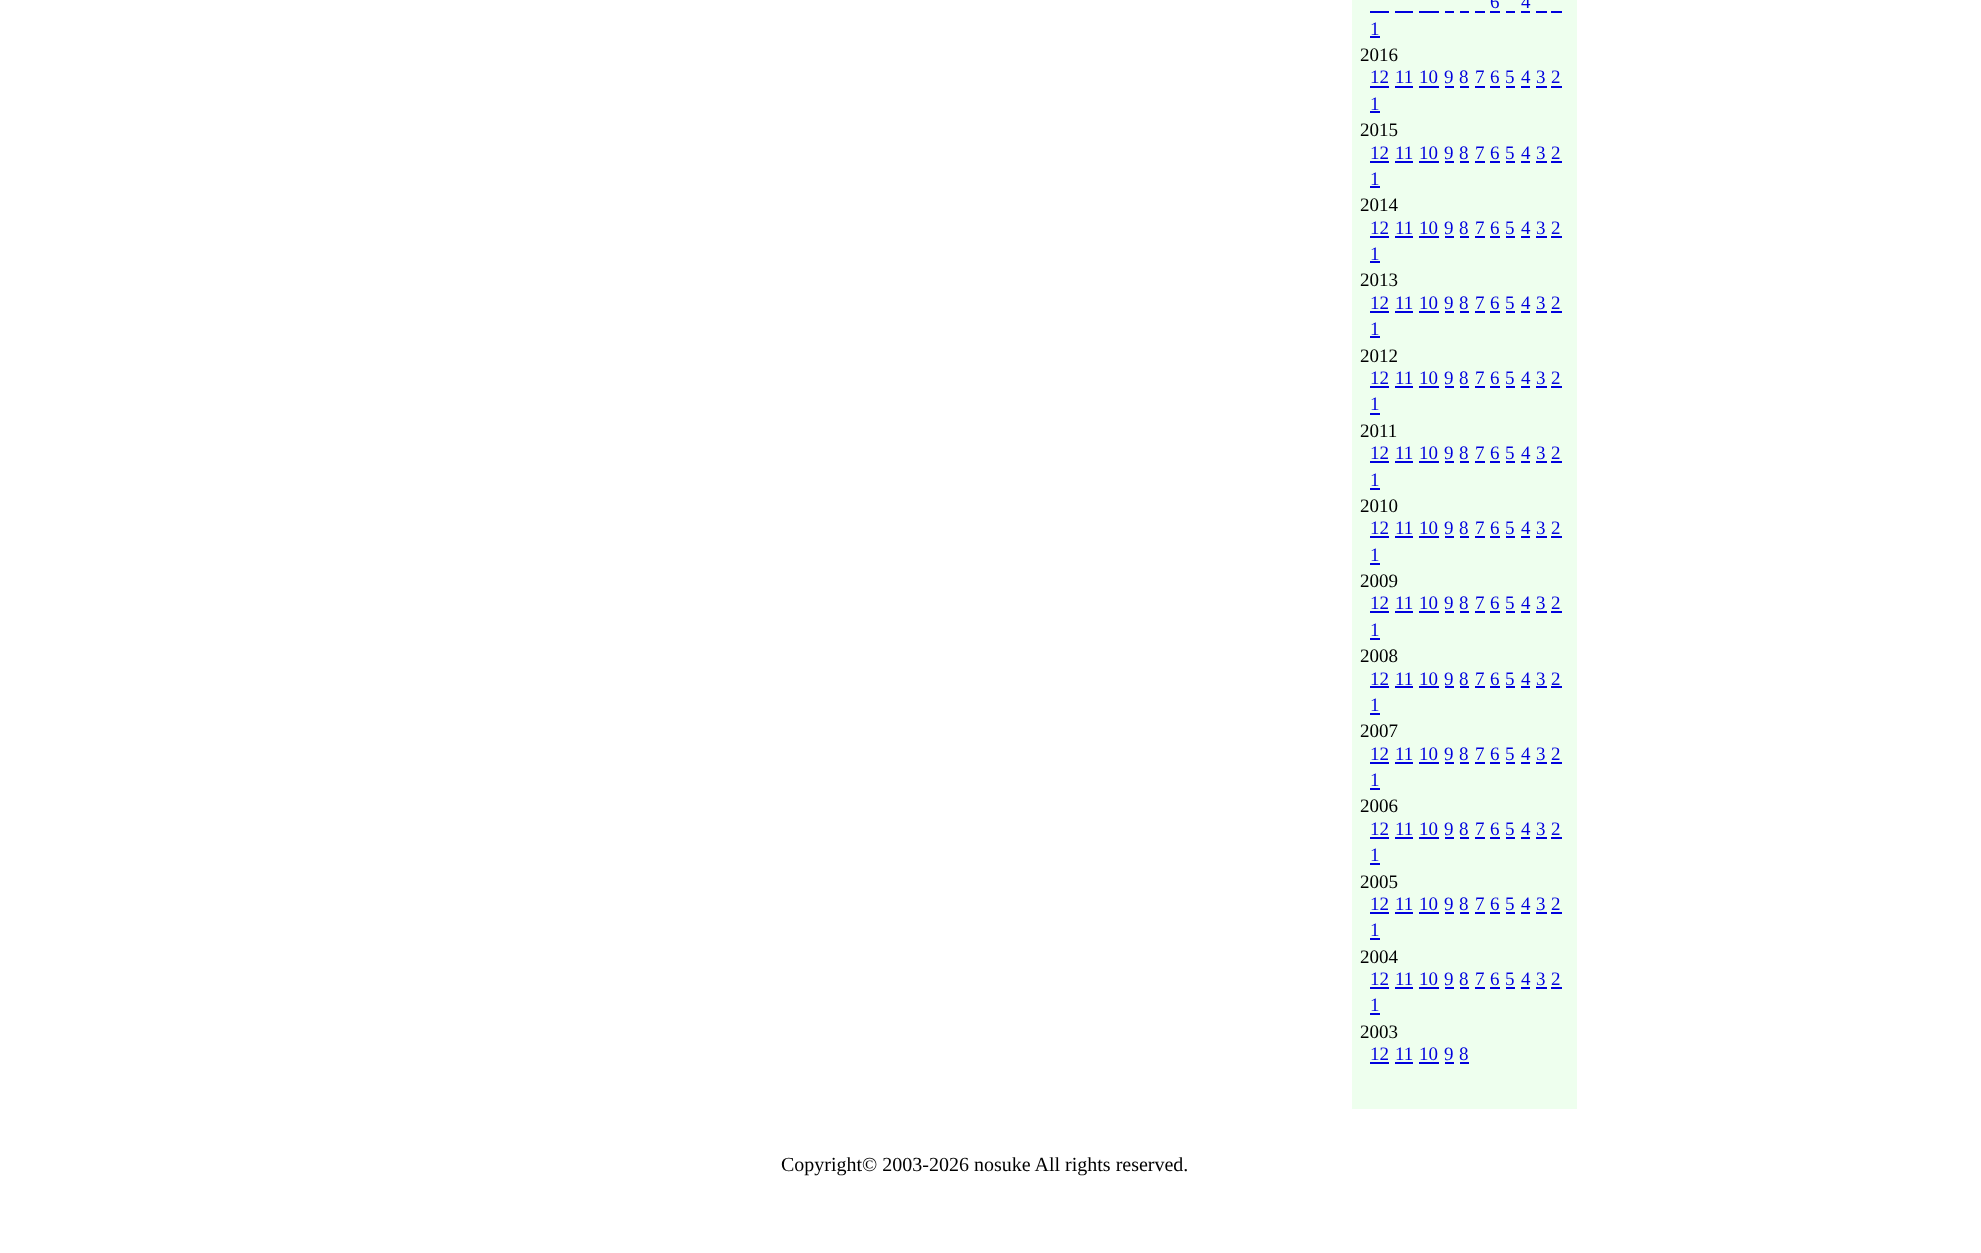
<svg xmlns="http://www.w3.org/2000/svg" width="1981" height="1253">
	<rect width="100%" height="100%" fill="#FFFFFF" />
	<rect x="1352" y="0" width="225" height="1109" fill="#EEFFEE" />
	<text x="1490" y="8" font-family="Liberation Serif" font-size="19" fill="#0000DD">6</text>
	<rect x="1490" y="11" width="10" height="2" fill="#0000DD" />
	<text x="1521" y="8" font-family="Liberation Serif" font-size="19" fill="#0000DD">4</text>
	<rect x="1521" y="11" width="9" height="2" fill="#0000DD" />
	<rect x="1370" y="11" width="19" height="2" fill="#0000DD" />
	<rect x="1395" y="11" width="18" height="2" fill="#0000DD" />
	<rect x="1419" y="11" width="20" height="2" fill="#0000DD" />
	<rect x="1445" y="11" width="9" height="2" fill="#0000DD" />
	<rect x="1460" y="11" width="9" height="2" fill="#0000DD" />
	<rect x="1475" y="11" width="10" height="2" fill="#0000DD" />
	<rect x="1506" y="11" width="9" height="2" fill="#0000DD" />
	<rect x="1536" y="11" width="11" height="2" fill="#0000DD" />
	<rect x="1551" y="11" width="11" height="2" fill="#0000DD" />
	<text x="1370" y="35" font-family="Liberation Serif" font-size="19" fill="#0000DD">1</text>
	<rect x="1370" y="36" width="10" height="2" fill="#0000DD" />
	<text x="1360" y="61" font-family="Liberation Serif" font-size="19" fill="#000000">2016</text>
	<text x="1370" y="83" font-family="Liberation Serif" font-size="19" fill="#0000DD">12</text>
	<rect x="1370" y="86" width="19" height="2" fill="#0000DD" />
	<text x="1395" y="83" font-family="Liberation Serif" font-size="19" fill="#0000DD">11</text>
	<rect x="1395" y="86" width="18" height="2" fill="#0000DD" />
	<text x="1419" y="83" font-family="Liberation Serif" font-size="19" fill="#0000DD">10</text>
	<rect x="1419" y="86" width="20" height="2" fill="#0000DD" />
	<text x="1444" y="83" font-family="Liberation Serif" font-size="19" fill="#0000DD">9</text>
	<rect x="1445" y="86" width="9" height="2" fill="#0000DD" />
	<text x="1459" y="83" font-family="Liberation Serif" font-size="19" fill="#0000DD">8</text>
	<rect x="1460" y="86" width="9" height="2" fill="#0000DD" />
	<text x="1475" y="83" font-family="Liberation Serif" font-size="19" fill="#0000DD">7</text>
	<rect x="1475" y="86" width="10" height="2" fill="#0000DD" />
	<text x="1490" y="83" font-family="Liberation Serif" font-size="19" fill="#0000DD">6</text>
	<rect x="1490" y="86" width="10" height="2" fill="#0000DD" />
	<text x="1505" y="83" font-family="Liberation Serif" font-size="19" fill="#0000DD">5</text>
	<rect x="1506" y="86" width="9" height="2" fill="#0000DD" />
	<text x="1521" y="83" font-family="Liberation Serif" font-size="19" fill="#0000DD">4</text>
	<rect x="1521" y="86" width="9" height="2" fill="#0000DD" />
	<text x="1536" y="83" font-family="Liberation Serif" font-size="19" fill="#0000DD">3</text>
	<rect x="1536" y="86" width="11" height="2" fill="#0000DD" />
	<text x="1551" y="83" font-family="Liberation Serif" font-size="19" fill="#0000DD">2</text>
	<rect x="1551" y="86" width="11" height="2" fill="#0000DD" />
	<text x="1370" y="110" font-family="Liberation Serif" font-size="19" fill="#0000DD">1</text>
	<rect x="1370" y="111" width="10" height="2" fill="#0000DD" />
	<text x="1360" y="136" font-family="Liberation Serif" font-size="19" fill="#000000">2015</text>
	<text x="1370" y="159" font-family="Liberation Serif" font-size="19" fill="#0000DD">12</text>
	<rect x="1370" y="161" width="19" height="2" fill="#0000DD" />
	<text x="1395" y="159" font-family="Liberation Serif" font-size="19" fill="#0000DD">11</text>
	<rect x="1395" y="161" width="18" height="2" fill="#0000DD" />
	<text x="1419" y="159" font-family="Liberation Serif" font-size="19" fill="#0000DD">10</text>
	<rect x="1419" y="161" width="20" height="2" fill="#0000DD" />
	<text x="1444" y="159" font-family="Liberation Serif" font-size="19" fill="#0000DD">9</text>
	<rect x="1445" y="161" width="9" height="2" fill="#0000DD" />
	<text x="1459" y="159" font-family="Liberation Serif" font-size="19" fill="#0000DD">8</text>
	<rect x="1460" y="161" width="9" height="2" fill="#0000DD" />
	<text x="1475" y="159" font-family="Liberation Serif" font-size="19" fill="#0000DD">7</text>
	<rect x="1475" y="161" width="10" height="2" fill="#0000DD" />
	<text x="1490" y="159" font-family="Liberation Serif" font-size="19" fill="#0000DD">6</text>
	<rect x="1490" y="161" width="10" height="2" fill="#0000DD" />
	<text x="1505" y="159" font-family="Liberation Serif" font-size="19" fill="#0000DD">5</text>
	<rect x="1506" y="161" width="9" height="2" fill="#0000DD" />
	<text x="1521" y="159" font-family="Liberation Serif" font-size="19" fill="#0000DD">4</text>
	<rect x="1521" y="161" width="9" height="2" fill="#0000DD" />
	<text x="1536" y="159" font-family="Liberation Serif" font-size="19" fill="#0000DD">3</text>
	<rect x="1536" y="161" width="11" height="2" fill="#0000DD" />
	<text x="1551" y="159" font-family="Liberation Serif" font-size="19" fill="#0000DD">2</text>
	<rect x="1551" y="161" width="11" height="2" fill="#0000DD" />
	<text x="1370" y="185" font-family="Liberation Serif" font-size="19" fill="#0000DD">1</text>
	<rect x="1370" y="186" width="10" height="2" fill="#0000DD" />
	<text x="1360" y="211" font-family="Liberation Serif" font-size="19" fill="#000000">2014</text>
	<text x="1370" y="234" font-family="Liberation Serif" font-size="19" fill="#0000DD">12</text>
	<rect x="1370" y="236" width="19" height="2" fill="#0000DD" />
	<text x="1395" y="234" font-family="Liberation Serif" font-size="19" fill="#0000DD">11</text>
	<rect x="1395" y="236" width="18" height="2" fill="#0000DD" />
	<text x="1419" y="234" font-family="Liberation Serif" font-size="19" fill="#0000DD">10</text>
	<rect x="1419" y="236" width="20" height="2" fill="#0000DD" />
	<text x="1444" y="234" font-family="Liberation Serif" font-size="19" fill="#0000DD">9</text>
	<rect x="1445" y="236" width="9" height="2" fill="#0000DD" />
	<text x="1459" y="234" font-family="Liberation Serif" font-size="19" fill="#0000DD">8</text>
	<rect x="1460" y="236" width="9" height="2" fill="#0000DD" />
	<text x="1475" y="234" font-family="Liberation Serif" font-size="19" fill="#0000DD">7</text>
	<rect x="1475" y="236" width="10" height="2" fill="#0000DD" />
	<text x="1490" y="234" font-family="Liberation Serif" font-size="19" fill="#0000DD">6</text>
	<rect x="1490" y="236" width="10" height="2" fill="#0000DD" />
	<text x="1505" y="234" font-family="Liberation Serif" font-size="19" fill="#0000DD">5</text>
	<rect x="1506" y="236" width="9" height="2" fill="#0000DD" />
	<text x="1521" y="234" font-family="Liberation Serif" font-size="19" fill="#0000DD">4</text>
	<rect x="1521" y="236" width="9" height="2" fill="#0000DD" />
	<text x="1536" y="234" font-family="Liberation Serif" font-size="19" fill="#0000DD">3</text>
	<rect x="1536" y="236" width="11" height="2" fill="#0000DD" />
	<text x="1551" y="234" font-family="Liberation Serif" font-size="19" fill="#0000DD">2</text>
	<rect x="1551" y="236" width="11" height="2" fill="#0000DD" />
	<text x="1370" y="260" font-family="Liberation Serif" font-size="19" fill="#0000DD">1</text>
	<rect x="1370" y="261" width="10" height="2" fill="#0000DD" />
	<text x="1360" y="286" font-family="Liberation Serif" font-size="19" fill="#000000">2013</text>
	<text x="1370" y="309" font-family="Liberation Serif" font-size="19" fill="#0000DD">12</text>
	<rect x="1370" y="311" width="19" height="2" fill="#0000DD" />
	<text x="1395" y="309" font-family="Liberation Serif" font-size="19" fill="#0000DD">11</text>
	<rect x="1395" y="311" width="18" height="2" fill="#0000DD" />
	<text x="1419" y="309" font-family="Liberation Serif" font-size="19" fill="#0000DD">10</text>
	<rect x="1419" y="311" width="20" height="2" fill="#0000DD" />
	<text x="1444" y="309" font-family="Liberation Serif" font-size="19" fill="#0000DD">9</text>
	<rect x="1445" y="311" width="9" height="2" fill="#0000DD" />
	<text x="1459" y="309" font-family="Liberation Serif" font-size="19" fill="#0000DD">8</text>
	<rect x="1460" y="311" width="9" height="2" fill="#0000DD" />
	<text x="1475" y="309" font-family="Liberation Serif" font-size="19" fill="#0000DD">7</text>
	<rect x="1475" y="311" width="10" height="2" fill="#0000DD" />
	<text x="1490" y="309" font-family="Liberation Serif" font-size="19" fill="#0000DD">6</text>
	<rect x="1490" y="311" width="10" height="2" fill="#0000DD" />
	<text x="1505" y="309" font-family="Liberation Serif" font-size="19" fill="#0000DD">5</text>
	<rect x="1506" y="311" width="9" height="2" fill="#0000DD" />
	<text x="1521" y="309" font-family="Liberation Serif" font-size="19" fill="#0000DD">4</text>
	<rect x="1521" y="311" width="9" height="2" fill="#0000DD" />
	<text x="1536" y="309" font-family="Liberation Serif" font-size="19" fill="#0000DD">3</text>
	<rect x="1536" y="311" width="11" height="2" fill="#0000DD" />
	<text x="1551" y="309" font-family="Liberation Serif" font-size="19" fill="#0000DD">2</text>
	<rect x="1551" y="311" width="11" height="2" fill="#0000DD" />
	<text x="1370" y="335" font-family="Liberation Serif" font-size="19" fill="#0000DD">1</text>
	<rect x="1370" y="336" width="10" height="2" fill="#0000DD" />
	<text x="1360" y="362" font-family="Liberation Serif" font-size="19" fill="#000000">2012</text>
	<text x="1370" y="384" font-family="Liberation Serif" font-size="19" fill="#0000DD">12</text>
	<rect x="1370" y="386" width="19" height="2" fill="#0000DD" />
	<text x="1395" y="384" font-family="Liberation Serif" font-size="19" fill="#0000DD">11</text>
	<rect x="1395" y="386" width="18" height="2" fill="#0000DD" />
	<text x="1419" y="384" font-family="Liberation Serif" font-size="19" fill="#0000DD">10</text>
	<rect x="1419" y="386" width="20" height="2" fill="#0000DD" />
	<text x="1444" y="384" font-family="Liberation Serif" font-size="19" fill="#0000DD">9</text>
	<rect x="1445" y="386" width="9" height="2" fill="#0000DD" />
	<text x="1459" y="384" font-family="Liberation Serif" font-size="19" fill="#0000DD">8</text>
	<rect x="1460" y="386" width="9" height="2" fill="#0000DD" />
	<text x="1475" y="384" font-family="Liberation Serif" font-size="19" fill="#0000DD">7</text>
	<rect x="1475" y="386" width="10" height="2" fill="#0000DD" />
	<text x="1490" y="384" font-family="Liberation Serif" font-size="19" fill="#0000DD">6</text>
	<rect x="1490" y="386" width="10" height="2" fill="#0000DD" />
	<text x="1505" y="384" font-family="Liberation Serif" font-size="19" fill="#0000DD">5</text>
	<rect x="1506" y="386" width="9" height="2" fill="#0000DD" />
	<text x="1521" y="384" font-family="Liberation Serif" font-size="19" fill="#0000DD">4</text>
	<rect x="1521" y="386" width="9" height="2" fill="#0000DD" />
	<text x="1536" y="384" font-family="Liberation Serif" font-size="19" fill="#0000DD">3</text>
	<rect x="1536" y="386" width="11" height="2" fill="#0000DD" />
	<text x="1551" y="384" font-family="Liberation Serif" font-size="19" fill="#0000DD">2</text>
	<rect x="1551" y="386" width="11" height="2" fill="#0000DD" />
	<text x="1370" y="410" font-family="Liberation Serif" font-size="19" fill="#0000DD">1</text>
	<rect x="1370" y="413" width="10" height="2" fill="#0000DD" />
	<text x="1360" y="437" font-family="Liberation Serif" font-size="19" fill="#000000">2011</text>
	<text x="1370" y="459" font-family="Liberation Serif" font-size="19" fill="#0000DD">12</text>
	<rect x="1370" y="461" width="19" height="2" fill="#0000DD" />
	<text x="1395" y="459" font-family="Liberation Serif" font-size="19" fill="#0000DD">11</text>
	<rect x="1395" y="461" width="18" height="2" fill="#0000DD" />
	<text x="1419" y="459" font-family="Liberation Serif" font-size="19" fill="#0000DD">10</text>
	<rect x="1419" y="461" width="20" height="2" fill="#0000DD" />
	<text x="1444" y="459" font-family="Liberation Serif" font-size="19" fill="#0000DD">9</text>
	<rect x="1445" y="461" width="9" height="2" fill="#0000DD" />
	<text x="1459" y="459" font-family="Liberation Serif" font-size="19" fill="#0000DD">8</text>
	<rect x="1460" y="461" width="9" height="2" fill="#0000DD" />
	<text x="1475" y="459" font-family="Liberation Serif" font-size="19" fill="#0000DD">7</text>
	<rect x="1475" y="461" width="10" height="2" fill="#0000DD" />
	<text x="1490" y="459" font-family="Liberation Serif" font-size="19" fill="#0000DD">6</text>
	<rect x="1490" y="461" width="10" height="2" fill="#0000DD" />
	<text x="1505" y="459" font-family="Liberation Serif" font-size="19" fill="#0000DD">5</text>
	<rect x="1506" y="461" width="9" height="2" fill="#0000DD" />
	<text x="1521" y="459" font-family="Liberation Serif" font-size="19" fill="#0000DD">4</text>
	<rect x="1521" y="461" width="9" height="2" fill="#0000DD" />
	<text x="1536" y="459" font-family="Liberation Serif" font-size="19" fill="#0000DD">3</text>
	<rect x="1536" y="461" width="11" height="2" fill="#0000DD" />
	<text x="1551" y="459" font-family="Liberation Serif" font-size="19" fill="#0000DD">2</text>
	<rect x="1551" y="461" width="11" height="2" fill="#0000DD" />
	<text x="1370" y="486" font-family="Liberation Serif" font-size="19" fill="#0000DD">1</text>
	<rect x="1370" y="488" width="10" height="2" fill="#0000DD" />
	<text x="1360" y="512" font-family="Liberation Serif" font-size="19" fill="#000000">2010</text>
	<text x="1370" y="534" font-family="Liberation Serif" font-size="19" fill="#0000DD">12</text>
	<rect x="1370" y="536" width="19" height="2" fill="#0000DD" />
	<text x="1395" y="534" font-family="Liberation Serif" font-size="19" fill="#0000DD">11</text>
	<rect x="1395" y="536" width="18" height="2" fill="#0000DD" />
	<text x="1419" y="534" font-family="Liberation Serif" font-size="19" fill="#0000DD">10</text>
	<rect x="1419" y="536" width="20" height="2" fill="#0000DD" />
	<text x="1444" y="534" font-family="Liberation Serif" font-size="19" fill="#0000DD">9</text>
	<rect x="1445" y="536" width="9" height="2" fill="#0000DD" />
	<text x="1459" y="534" font-family="Liberation Serif" font-size="19" fill="#0000DD">8</text>
	<rect x="1460" y="536" width="9" height="2" fill="#0000DD" />
	<text x="1475" y="534" font-family="Liberation Serif" font-size="19" fill="#0000DD">7</text>
	<rect x="1475" y="536" width="10" height="2" fill="#0000DD" />
	<text x="1490" y="534" font-family="Liberation Serif" font-size="19" fill="#0000DD">6</text>
	<rect x="1490" y="536" width="10" height="2" fill="#0000DD" />
	<text x="1505" y="534" font-family="Liberation Serif" font-size="19" fill="#0000DD">5</text>
	<rect x="1506" y="536" width="9" height="2" fill="#0000DD" />
	<text x="1521" y="534" font-family="Liberation Serif" font-size="19" fill="#0000DD">4</text>
	<rect x="1521" y="536" width="9" height="2" fill="#0000DD" />
	<text x="1536" y="534" font-family="Liberation Serif" font-size="19" fill="#0000DD">3</text>
	<rect x="1536" y="536" width="11" height="2" fill="#0000DD" />
	<text x="1551" y="534" font-family="Liberation Serif" font-size="19" fill="#0000DD">2</text>
	<rect x="1551" y="536" width="11" height="2" fill="#0000DD" />
	<text x="1370" y="561" font-family="Liberation Serif" font-size="19" fill="#0000DD">1</text>
	<rect x="1370" y="563" width="10" height="2" fill="#0000DD" />
	<text x="1360" y="587" font-family="Liberation Serif" font-size="19" fill="#000000">2009</text>
	<text x="1370" y="609" font-family="Liberation Serif" font-size="19" fill="#0000DD">12</text>
	<rect x="1370" y="611" width="19" height="2" fill="#0000DD" />
	<text x="1395" y="609" font-family="Liberation Serif" font-size="19" fill="#0000DD">11</text>
	<rect x="1395" y="611" width="18" height="2" fill="#0000DD" />
	<text x="1419" y="609" font-family="Liberation Serif" font-size="19" fill="#0000DD">10</text>
	<rect x="1419" y="611" width="20" height="2" fill="#0000DD" />
	<text x="1444" y="609" font-family="Liberation Serif" font-size="19" fill="#0000DD">9</text>
	<rect x="1445" y="611" width="9" height="2" fill="#0000DD" />
	<text x="1459" y="609" font-family="Liberation Serif" font-size="19" fill="#0000DD">8</text>
	<rect x="1460" y="611" width="9" height="2" fill="#0000DD" />
	<text x="1475" y="609" font-family="Liberation Serif" font-size="19" fill="#0000DD">7</text>
	<rect x="1475" y="611" width="10" height="2" fill="#0000DD" />
	<text x="1490" y="609" font-family="Liberation Serif" font-size="19" fill="#0000DD">6</text>
	<rect x="1490" y="611" width="10" height="2" fill="#0000DD" />
	<text x="1505" y="609" font-family="Liberation Serif" font-size="19" fill="#0000DD">5</text>
	<rect x="1506" y="611" width="9" height="2" fill="#0000DD" />
	<text x="1521" y="609" font-family="Liberation Serif" font-size="19" fill="#0000DD">4</text>
	<rect x="1521" y="611" width="9" height="2" fill="#0000DD" />
	<text x="1536" y="609" font-family="Liberation Serif" font-size="19" fill="#0000DD">3</text>
	<rect x="1536" y="611" width="11" height="2" fill="#0000DD" />
	<text x="1551" y="609" font-family="Liberation Serif" font-size="19" fill="#0000DD">2</text>
	<rect x="1551" y="611" width="11" height="2" fill="#0000DD" />
	<text x="1370" y="636" font-family="Liberation Serif" font-size="19" fill="#0000DD">1</text>
	<rect x="1370" y="638" width="10" height="2" fill="#0000DD" />
	<text x="1360" y="662" font-family="Liberation Serif" font-size="19" fill="#000000">2008</text>
	<text x="1370" y="685" font-family="Liberation Serif" font-size="19" fill="#0000DD">12</text>
	<rect x="1370" y="686" width="19" height="2" fill="#0000DD" />
	<text x="1395" y="685" font-family="Liberation Serif" font-size="19" fill="#0000DD">11</text>
	<rect x="1395" y="686" width="18" height="2" fill="#0000DD" />
	<text x="1419" y="685" font-family="Liberation Serif" font-size="19" fill="#0000DD">10</text>
	<rect x="1419" y="686" width="20" height="2" fill="#0000DD" />
	<text x="1444" y="685" font-family="Liberation Serif" font-size="19" fill="#0000DD">9</text>
	<rect x="1445" y="686" width="9" height="2" fill="#0000DD" />
	<text x="1459" y="685" font-family="Liberation Serif" font-size="19" fill="#0000DD">8</text>
	<rect x="1460" y="686" width="9" height="2" fill="#0000DD" />
	<text x="1475" y="685" font-family="Liberation Serif" font-size="19" fill="#0000DD">7</text>
	<rect x="1475" y="686" width="10" height="2" fill="#0000DD" />
	<text x="1490" y="685" font-family="Liberation Serif" font-size="19" fill="#0000DD">6</text>
	<rect x="1490" y="686" width="10" height="2" fill="#0000DD" />
	<text x="1505" y="685" font-family="Liberation Serif" font-size="19" fill="#0000DD">5</text>
	<rect x="1506" y="686" width="9" height="2" fill="#0000DD" />
	<text x="1521" y="685" font-family="Liberation Serif" font-size="19" fill="#0000DD">4</text>
	<rect x="1521" y="686" width="9" height="2" fill="#0000DD" />
	<text x="1536" y="685" font-family="Liberation Serif" font-size="19" fill="#0000DD">3</text>
	<rect x="1536" y="686" width="11" height="2" fill="#0000DD" />
	<text x="1551" y="685" font-family="Liberation Serif" font-size="19" fill="#0000DD">2</text>
	<rect x="1551" y="686" width="11" height="2" fill="#0000DD" />
	<text x="1370" y="711" font-family="Liberation Serif" font-size="19" fill="#0000DD">1</text>
	<rect x="1370" y="713" width="10" height="2" fill="#0000DD" />
	<text x="1360" y="737" font-family="Liberation Serif" font-size="19" fill="#000000">2007</text>
	<text x="1370" y="760" font-family="Liberation Serif" font-size="19" fill="#0000DD">12</text>
	<rect x="1370" y="762" width="19" height="2" fill="#0000DD" />
	<text x="1395" y="760" font-family="Liberation Serif" font-size="19" fill="#0000DD">11</text>
	<rect x="1395" y="762" width="18" height="2" fill="#0000DD" />
	<text x="1419" y="760" font-family="Liberation Serif" font-size="19" fill="#0000DD">10</text>
	<rect x="1419" y="762" width="20" height="2" fill="#0000DD" />
	<text x="1444" y="760" font-family="Liberation Serif" font-size="19" fill="#0000DD">9</text>
	<rect x="1445" y="762" width="9" height="2" fill="#0000DD" />
	<text x="1459" y="760" font-family="Liberation Serif" font-size="19" fill="#0000DD">8</text>
	<rect x="1460" y="762" width="9" height="2" fill="#0000DD" />
	<text x="1475" y="760" font-family="Liberation Serif" font-size="19" fill="#0000DD">7</text>
	<rect x="1475" y="762" width="10" height="2" fill="#0000DD" />
	<text x="1490" y="760" font-family="Liberation Serif" font-size="19" fill="#0000DD">6</text>
	<rect x="1490" y="762" width="10" height="2" fill="#0000DD" />
	<text x="1505" y="760" font-family="Liberation Serif" font-size="19" fill="#0000DD">5</text>
	<rect x="1506" y="762" width="9" height="2" fill="#0000DD" />
	<text x="1521" y="760" font-family="Liberation Serif" font-size="19" fill="#0000DD">4</text>
	<rect x="1521" y="762" width="9" height="2" fill="#0000DD" />
	<text x="1536" y="760" font-family="Liberation Serif" font-size="19" fill="#0000DD">3</text>
	<rect x="1536" y="762" width="11" height="2" fill="#0000DD" />
	<text x="1551" y="760" font-family="Liberation Serif" font-size="19" fill="#0000DD">2</text>
	<rect x="1551" y="762" width="11" height="2" fill="#0000DD" />
	<text x="1370" y="786" font-family="Liberation Serif" font-size="19" fill="#0000DD">1</text>
	<rect x="1370" y="788" width="10" height="2" fill="#0000DD" />
	<text x="1360" y="812" font-family="Liberation Serif" font-size="19" fill="#000000">2006</text>
	<text x="1370" y="835" font-family="Liberation Serif" font-size="19" fill="#0000DD">12</text>
	<rect x="1370" y="837" width="19" height="2" fill="#0000DD" />
	<text x="1395" y="835" font-family="Liberation Serif" font-size="19" fill="#0000DD">11</text>
	<rect x="1395" y="837" width="18" height="2" fill="#0000DD" />
	<text x="1419" y="835" font-family="Liberation Serif" font-size="19" fill="#0000DD">10</text>
	<rect x="1419" y="837" width="20" height="2" fill="#0000DD" />
	<text x="1444" y="835" font-family="Liberation Serif" font-size="19" fill="#0000DD">9</text>
	<rect x="1445" y="837" width="9" height="2" fill="#0000DD" />
	<text x="1459" y="835" font-family="Liberation Serif" font-size="19" fill="#0000DD">8</text>
	<rect x="1460" y="837" width="9" height="2" fill="#0000DD" />
	<text x="1475" y="835" font-family="Liberation Serif" font-size="19" fill="#0000DD">7</text>
	<rect x="1475" y="837" width="10" height="2" fill="#0000DD" />
	<text x="1490" y="835" font-family="Liberation Serif" font-size="19" fill="#0000DD">6</text>
	<rect x="1490" y="837" width="10" height="2" fill="#0000DD" />
	<text x="1505" y="835" font-family="Liberation Serif" font-size="19" fill="#0000DD">5</text>
	<rect x="1506" y="837" width="9" height="2" fill="#0000DD" />
	<text x="1521" y="835" font-family="Liberation Serif" font-size="19" fill="#0000DD">4</text>
	<rect x="1521" y="837" width="9" height="2" fill="#0000DD" />
	<text x="1536" y="835" font-family="Liberation Serif" font-size="19" fill="#0000DD">3</text>
	<rect x="1536" y="837" width="11" height="2" fill="#0000DD" />
	<text x="1551" y="835" font-family="Liberation Serif" font-size="19" fill="#0000DD">2</text>
	<rect x="1551" y="837" width="11" height="2" fill="#0000DD" />
	<text x="1370" y="861" font-family="Liberation Serif" font-size="19" fill="#0000DD">1</text>
	<rect x="1370" y="863" width="10" height="2" fill="#0000DD" />
	<text x="1360" y="888" font-family="Liberation Serif" font-size="19" fill="#000000">2005</text>
	<text x="1370" y="910" font-family="Liberation Serif" font-size="19" fill="#0000DD">12</text>
	<rect x="1370" y="912" width="19" height="2" fill="#0000DD" />
	<text x="1395" y="910" font-family="Liberation Serif" font-size="19" fill="#0000DD">11</text>
	<rect x="1395" y="912" width="18" height="2" fill="#0000DD" />
	<text x="1419" y="910" font-family="Liberation Serif" font-size="19" fill="#0000DD">10</text>
	<rect x="1419" y="912" width="20" height="2" fill="#0000DD" />
	<text x="1444" y="910" font-family="Liberation Serif" font-size="19" fill="#0000DD">9</text>
	<rect x="1445" y="912" width="9" height="2" fill="#0000DD" />
	<text x="1459" y="910" font-family="Liberation Serif" font-size="19" fill="#0000DD">8</text>
	<rect x="1460" y="912" width="9" height="2" fill="#0000DD" />
	<text x="1475" y="910" font-family="Liberation Serif" font-size="19" fill="#0000DD">7</text>
	<rect x="1475" y="912" width="10" height="2" fill="#0000DD" />
	<text x="1490" y="910" font-family="Liberation Serif" font-size="19" fill="#0000DD">6</text>
	<rect x="1490" y="912" width="10" height="2" fill="#0000DD" />
	<text x="1505" y="910" font-family="Liberation Serif" font-size="19" fill="#0000DD">5</text>
	<rect x="1506" y="912" width="9" height="2" fill="#0000DD" />
	<text x="1521" y="910" font-family="Liberation Serif" font-size="19" fill="#0000DD">4</text>
	<rect x="1521" y="912" width="9" height="2" fill="#0000DD" />
	<text x="1536" y="910" font-family="Liberation Serif" font-size="19" fill="#0000DD">3</text>
	<rect x="1536" y="912" width="11" height="2" fill="#0000DD" />
	<text x="1551" y="910" font-family="Liberation Serif" font-size="19" fill="#0000DD">2</text>
	<rect x="1551" y="912" width="11" height="2" fill="#0000DD" />
	<text x="1370" y="936" font-family="Liberation Serif" font-size="19" fill="#0000DD">1</text>
	<rect x="1370" y="938" width="10" height="2" fill="#0000DD" />
	<text x="1360" y="963" font-family="Liberation Serif" font-size="19" fill="#000000">2004</text>
	<text x="1370" y="985" font-family="Liberation Serif" font-size="19" fill="#0000DD">12</text>
	<rect x="1370" y="987" width="19" height="2" fill="#0000DD" />
	<text x="1395" y="985" font-family="Liberation Serif" font-size="19" fill="#0000DD">11</text>
	<rect x="1395" y="987" width="18" height="2" fill="#0000DD" />
	<text x="1419" y="985" font-family="Liberation Serif" font-size="19" fill="#0000DD">10</text>
	<rect x="1419" y="987" width="20" height="2" fill="#0000DD" />
	<text x="1444" y="985" font-family="Liberation Serif" font-size="19" fill="#0000DD">9</text>
	<rect x="1445" y="987" width="9" height="2" fill="#0000DD" />
	<text x="1459" y="985" font-family="Liberation Serif" font-size="19" fill="#0000DD">8</text>
	<rect x="1460" y="987" width="9" height="2" fill="#0000DD" />
	<text x="1475" y="985" font-family="Liberation Serif" font-size="19" fill="#0000DD">7</text>
	<rect x="1475" y="987" width="10" height="2" fill="#0000DD" />
	<text x="1490" y="985" font-family="Liberation Serif" font-size="19" fill="#0000DD">6</text>
	<rect x="1490" y="987" width="10" height="2" fill="#0000DD" />
	<text x="1505" y="985" font-family="Liberation Serif" font-size="19" fill="#0000DD">5</text>
	<rect x="1506" y="987" width="9" height="2" fill="#0000DD" />
	<text x="1521" y="985" font-family="Liberation Serif" font-size="19" fill="#0000DD">4</text>
	<rect x="1521" y="987" width="9" height="2" fill="#0000DD" />
	<text x="1536" y="985" font-family="Liberation Serif" font-size="19" fill="#0000DD">3</text>
	<rect x="1536" y="987" width="11" height="2" fill="#0000DD" />
	<text x="1551" y="985" font-family="Liberation Serif" font-size="19" fill="#0000DD">2</text>
	<rect x="1551" y="987" width="11" height="2" fill="#0000DD" />
	<text x="1370" y="1011" font-family="Liberation Serif" font-size="19" fill="#0000DD">1</text>
	<rect x="1370" y="1013" width="10" height="2" fill="#0000DD" />
	<text x="1360" y="1038" font-family="Liberation Serif" font-size="19" fill="#000000">2003</text>
	<text x="1370" y="1060" font-family="Liberation Serif" font-size="19" fill="#0000DD">12</text>
	<rect x="1370" y="1062" width="19" height="2" fill="#0000DD" />
	<text x="1395" y="1060" font-family="Liberation Serif" font-size="19" fill="#0000DD">11</text>
	<rect x="1395" y="1062" width="18" height="2" fill="#0000DD" />
	<text x="1419" y="1060" font-family="Liberation Serif" font-size="19" fill="#0000DD">10</text>
	<rect x="1419" y="1062" width="20" height="2" fill="#0000DD" />
	<text x="1444" y="1060" font-family="Liberation Serif" font-size="19" fill="#0000DD">9</text>
	<rect x="1445" y="1062" width="9" height="2" fill="#0000DD" />
	<text x="1459" y="1060" font-family="Liberation Serif" font-size="19" fill="#0000DD">8</text>
	<rect x="1460" y="1062" width="9" height="2" fill="#0000DD" />
	<text x="781" y="1171" font-family="Liberation Serif" font-size="20" fill="#000000">Copyright© 2003-2026 nosuke All rights reserved.</text>
</svg>
